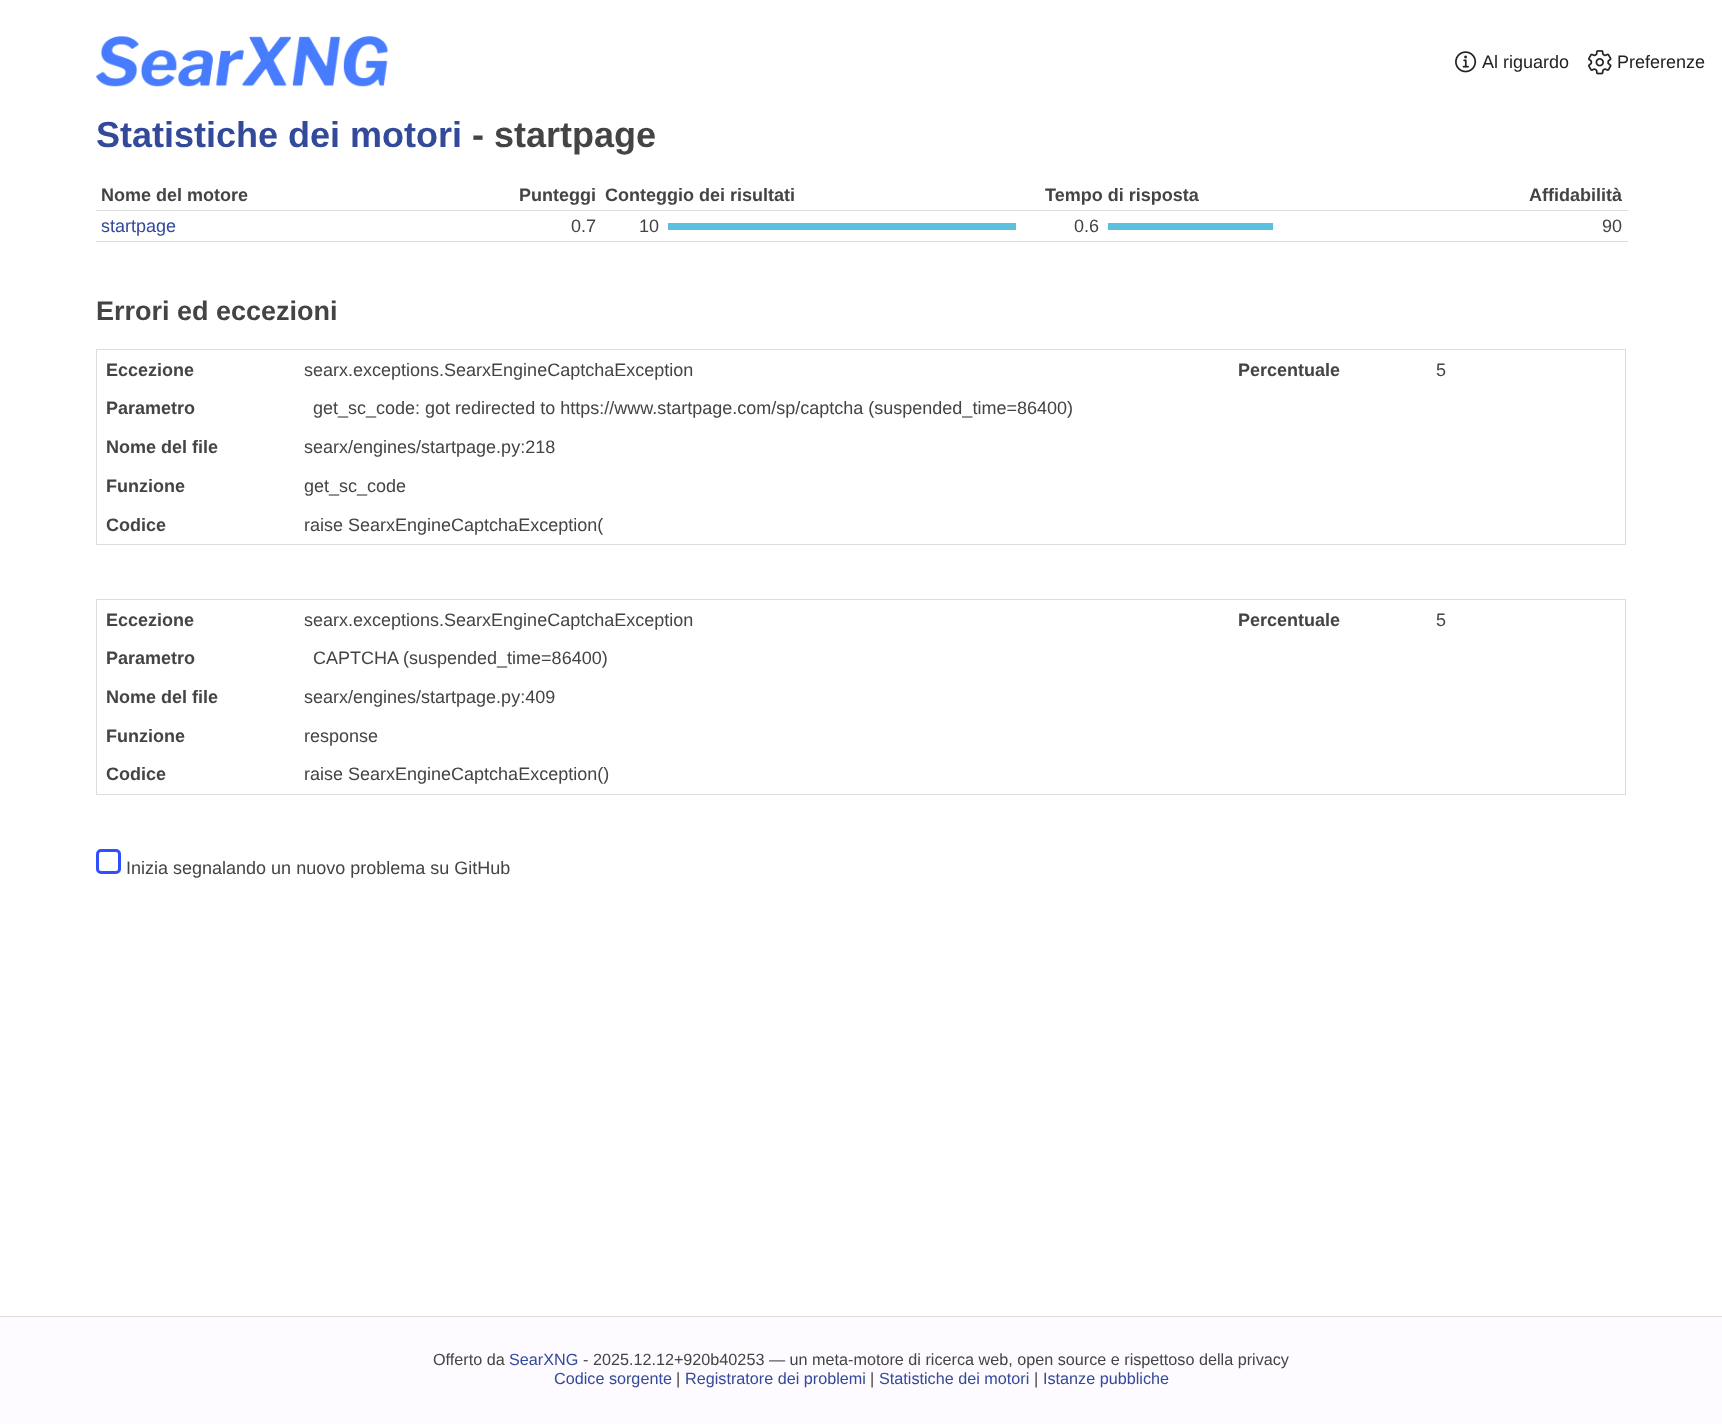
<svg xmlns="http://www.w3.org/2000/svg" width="1722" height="1424">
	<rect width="100%" height="100%" fill="#FFFFFF" />
	<image x="96" y="36" width="292" height="51" href="assets/img1.png" />
	<image x="1455" y="51" width="22" height="22" href="assets/img2.png" />
	<text x="1482" y="68" font-family="Liberation Sans" font-size="18" fill="#222222">Al riguardo</text>
	<image x="1588" y="50" width="24" height="25" href="assets/img3.png" />
	<text x="1617" y="68" font-family="Liberation Sans" font-size="18" fill="#222222">Preferenze</text>
	<text x="96" y="147" font-family="Liberation Sans" font-size="36" font-weight="700" fill="#334999">Statistiche dei motori</text>
	<text x="472" y="147" font-family="Liberation Sans" font-size="36" font-weight="700" fill="#444444">- startpage</text>
	<g font-family="Liberation Sans" font-size="18" font-weight="700" fill="#444444">
		<text x="101" y="201">Nome del motore</text>
		<text x="519" y="201">Punteggi</text>
		<text x="605" y="201">Conteggio dei risultati</text>
		<text x="1045" y="201">Tempo di risposta</text>
	</g>
	<rect x="96" y="210" width="1532" height="1" fill="#DDDDDD" />
	<text x="1529" y="201" font-family="Liberation Sans" font-size="18" font-weight="700" fill="#444444">Affidabilità</text>
	<text x="101" y="232" font-family="Liberation Sans" font-size="18" fill="#334999">startpage</text>
	<g font-family="Liberation Sans" font-size="18" fill="#444444">
		<text x="571" y="232">0.7</text>
		<text x="639" y="232">10</text>
	</g>
	<rect x="668" y="223" width="348" height="7" fill="#5BC0DE" />
	<text x="1074" y="232" font-family="Liberation Sans" font-size="18" fill="#444444">0.6</text>
	<rect x="1108" y="223" width="165" height="7" fill="#5BC0DE" />
	<rect x="96" y="241" width="1532" height="1" fill="#DDDDDD" />
	<text x="1602" y="232" font-family="Liberation Sans" font-size="18" fill="#444444">90</text>
	<text x="96" y="320" font-family="Liberation Sans" font-size="27" font-weight="700" fill="#444444">Errori ed eccezioni</text>
	<rect x="96" y="349" width="1530" height="1" fill="#DDDDDD" />
	<rect x="1625" y="349" width="1" height="196" fill="#DDDDDD" />
	<rect x="96" y="544" width="1530" height="1" fill="#DDDDDD" />
	<rect x="96" y="349" width="1" height="196" fill="#DDDDDD" />
	<text x="106" y="376" font-family="Liberation Sans" font-size="18" font-weight="700" fill="#444444">Eccezione</text>
	<text x="304" y="376" font-family="Liberation Sans" font-size="18" fill="#444444">searx.exceptions.SearxEngineCaptchaException</text>
	<text x="1238" y="376" font-family="Liberation Sans" font-size="18" font-weight="700" fill="#444444">Percentuale</text>
	<text x="1436" y="376" font-family="Liberation Sans" font-size="18" fill="#444444">5</text>
	<text x="106" y="414" font-family="Liberation Sans" font-size="18" font-weight="700" fill="#444444">Parametro</text>
	<text x="313" y="414" font-family="Liberation Sans" font-size="18" fill="#444444">get_sc_code: got redirected to https://www.startpage.com/sp/captcha (suspended_time=86400)</text>
	<text x="106" y="453" font-family="Liberation Sans" font-size="18" font-weight="700" fill="#444444">Nome del file</text>
	<text x="304" y="453" font-family="Liberation Sans" font-size="18" fill="#444444">searx/engines/startpage.py:218</text>
	<text x="106" y="492" font-family="Liberation Sans" font-size="18" font-weight="700" fill="#444444">Funzione</text>
	<text x="304" y="492" font-family="Liberation Sans" font-size="18" fill="#444444">get_sc_code</text>
	<text x="106" y="531" font-family="Liberation Sans" font-size="18" font-weight="700" fill="#444444">Codice</text>
	<text x="304" y="531" font-family="Liberation Sans" font-size="18" fill="#444444">raise SearxEngineCaptchaException(</text>
	<rect x="96" y="599" width="1530" height="1" fill="#DDDDDD" />
	<rect x="1625" y="599" width="1" height="196" fill="#DDDDDD" />
	<rect x="96" y="794" width="1530" height="1" fill="#DDDDDD" />
	<rect x="96" y="599" width="1" height="196" fill="#DDDDDD" />
	<text x="106" y="626" font-family="Liberation Sans" font-size="18" font-weight="700" fill="#444444">Eccezione</text>
	<text x="304" y="626" font-family="Liberation Sans" font-size="18" fill="#444444">searx.exceptions.SearxEngineCaptchaException</text>
	<text x="1238" y="626" font-family="Liberation Sans" font-size="18" font-weight="700" fill="#444444">Percentuale</text>
	<text x="1436" y="626" font-family="Liberation Sans" font-size="18" fill="#444444">5</text>
	<text x="106" y="664" font-family="Liberation Sans" font-size="18" font-weight="700" fill="#444444">Parametro</text>
	<text x="313" y="664" font-family="Liberation Sans" font-size="18" fill="#444444">CAPTCHA (suspended_time=86400)</text>
	<text x="106" y="703" font-family="Liberation Sans" font-size="18" font-weight="700" fill="#444444">Nome del file</text>
	<text x="304" y="703" font-family="Liberation Sans" font-size="18" fill="#444444">searx/engines/startpage.py:409</text>
	<text x="106" y="742" font-family="Liberation Sans" font-size="18" font-weight="700" fill="#444444">Funzione</text>
	<text x="304" y="742" font-family="Liberation Sans" font-size="18" fill="#444444">response</text>
	<text x="106" y="780" font-family="Liberation Sans" font-size="18" font-weight="700" fill="#444444">Codice</text>
	<text x="304" y="780" font-family="Liberation Sans" font-size="18" fill="#444444">raise SearxEngineCaptchaException()</text>
	<rect x="97.5" y="850.5" width="22" height="22" rx="3.5" fill="none" stroke="#3050FF" stroke-width="3" />
	<text x="126" y="874" font-family="Liberation Sans" font-size="18" fill="#444444">Inizia segnalando un nuovo problema su GitHub</text>
	<rect x="0" y="1317" width="1722" height="107" fill="#FDFBFF" />
	<rect x="0" y="1316" width="1722" height="1" fill="#DDDDDD" />
	<text x="433" y="1365" font-family="Liberation Sans" font-size="16.2" fill="#444444">Offerto da</text>
	<text x="509" y="1365" font-family="Liberation Sans" font-size="16.2" fill="#334999">SearXNG</text>
	<text x="583" y="1365" font-family="Liberation Sans" font-size="16.2" fill="#444444">- 2025.12.12+920b40253 — un meta-motore di ricerca web, open source e rispettoso della privacy</text>
	<text x="554" y="1384" font-family="Liberation Sans" font-size="16.2" fill="#334999">Codice sorgente</text>
	<text x="676" y="1384" font-family="Liberation Sans" font-size="16.2" fill="#444444">|</text>
	<text x="685" y="1384" font-family="Liberation Sans" font-size="16.2" fill="#334999">Registratore dei problemi</text>
	<text x="870" y="1384" font-family="Liberation Sans" font-size="16.2" fill="#444444">|</text>
	<text x="879" y="1384" font-family="Liberation Sans" font-size="16.2" fill="#334999">Statistiche dei motori</text>
	<text x="1034" y="1384" font-family="Liberation Sans" font-size="16.2" fill="#444444">|</text>
	<text x="1043" y="1384" font-family="Liberation Sans" font-size="16.2" fill="#334999">Istanze pubbliche</text>
</svg>
